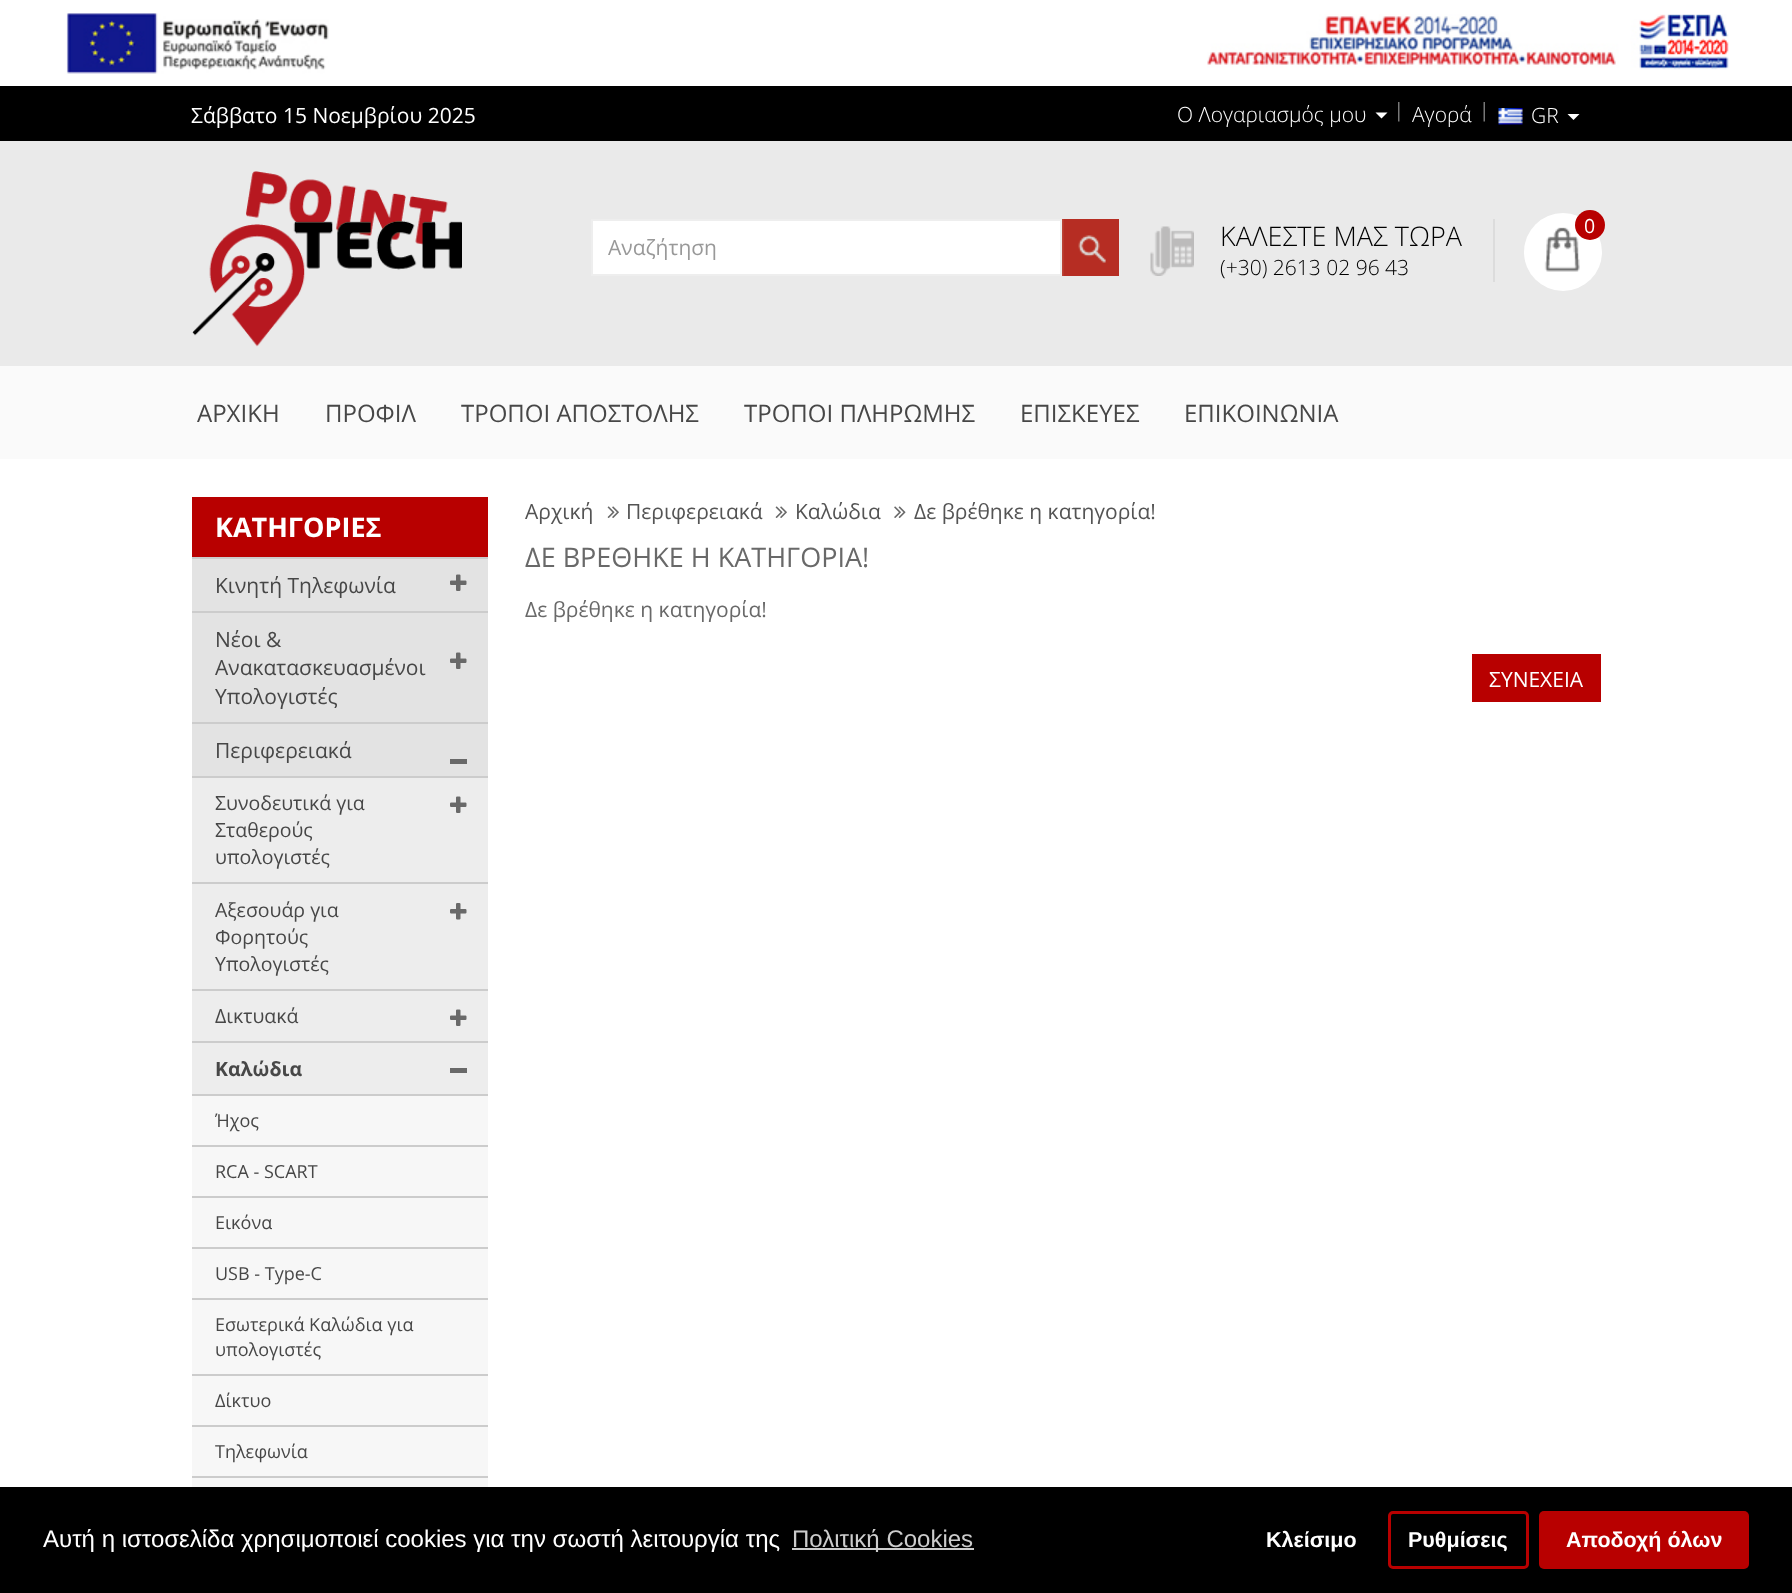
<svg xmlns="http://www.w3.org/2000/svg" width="1792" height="1593">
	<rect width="100%" height="100%" fill="#FFFFFF" />
	<rect x="0" y="86" width="1792" height="55" fill="#000000" />
	<image x="66" y="13" width="263" height="61" href="assets/img1.png" />
	<image x="1207" y="14" width="522" height="56" href="assets/img2.png" />
	<text x="191" y="123" font-family="Open Sans" font-size="21" fill="#FFFFFF">Σάββατο 15 Νοεμβρίου 2025</text>
	<text x="1177" y="122" font-family="Open Sans" font-size="21" font-weight="300" fill="#FFFFFF">Ο Λογαριασμός μου</text>
	<path d="M1375.5 112.5H1387.5L1381.5 118.5Z" fill="#FFFFFF" />
	<image x="1398" y="102" width="2" height="20" href="assets/img3.png" />
	<text x="1412" y="122" font-family="Open Sans" font-size="21" font-weight="300" fill="#FFFFFF">Αγορά</text>
	<image x="1483" y="102" width="2" height="20" href="assets/img4.png" />
	<image x="1498" y="108" width="25" height="17" href="assets/img5.png" />
	<text x="1531" y="123" font-family="Open Sans" font-size="21" font-weight="300" fill="#FFFFFF">GR</text>
	<path d="M1567.5 114H1579.5L1573.5 120Z" fill="#FFFFFF" />
	<rect x="0" y="141" width="1792" height="225" fill="#EAEAEA" />
	<image x="192" y="171" width="270" height="176" href="assets/img6.png" />
	<rect x="592" y="220" width="469" height="55" fill="#FFFFFF" stroke="#EEEEEE" stroke-width="2" />
	<text x="608" y="255" font-family="Open Sans" font-size="21" fill="#999999">Αναζήτηση</text>
	<image x="1062" y="219" width="57" height="57" href="assets/img7.png" />
	<image x="1150" y="226" width="44" height="50" href="assets/img8.png" />
	<rect x="1493" y="219" width="2" height="63" fill="#DCDCDC" />
	<text x="1220" y="246" font-family="Open Sans" font-size="27" font-weight="300" fill="#000000">ΚΑΛΕΣΤΕ ΜΑΣ ΤΩΡΑ</text>
	<text x="1220" y="275" font-family="Open Sans" font-size="21" font-weight="300" fill="#000000">(+30) 2613 02 96 43</text>
	<circle cx="1563" cy="252" r="39" fill="#FFFFFF" />
	<image x="1544" y="227" width="36" height="45" href="assets/img9.png" />
	<circle cx="1590" cy="225" r="15" fill="#B80000" />
	<text x="1584" y="233" font-family="Open Sans" font-size="19.5" fill="#FFFFFF">0</text>
	<rect x="0" y="366" width="1792" height="93" fill="#FAFAFA" />
	<g font-family="Open Sans" font-size="24" fill="#474747">
		<text x="197" y="422">ΑΡΧΙΚΗ</text>
		<text x="325" y="422">ΠΡΟΦΙΛ</text>
		<text x="461" y="422">ΤΡΟΠΟΙ ΑΠΟΣΤΟΛΗΣ</text>
		<text x="744" y="422">ΤΡΟΠΟΙ ΠΛΗΡΩΜΗΣ</text>
		<text x="1020" y="422">ΕΠΙΣΚΕΥΕΣ</text>
		<text x="1184" y="422">ΕΠΙΚΟΙΝΩΝΙΑ</text>
	</g>
	<rect x="192" y="497" width="296" height="60" fill="#B80000" />
	<text x="215" y="537" font-family="Open Sans" font-size="27" font-weight="700" fill="#FFFFFF">ΚΑΤΗΓΟΡΙΕΣ</text>
	<rect x="192" y="559" width="296" height="52" fill="#E3E3E3" />
	<rect x="192" y="557" width="296" height="2" fill="#CCCCCC" />
	<text x="215" y="593" font-family="Open Sans" font-size="21" fill="#474747">Κινητή Τηλεφωνία</text>
	<image x="450" y="574" width="17" height="17" href="assets/img10.png" />
	<rect x="192" y="613" width="296" height="109" fill="#E3E3E3" />
	<rect x="192" y="611" width="296" height="2" fill="#CCCCCC" />
	<g font-family="Open Sans" font-size="21" fill="#474747">
		<text x="215" y="647">Νέοι &amp;</text>
		<text x="215" y="675">Ανακατασκευασμένοι</text>
		<text x="215" y="704">Υπολογιστές</text>
	</g>
	<image x="450" y="652" width="17" height="17" href="assets/img10.png" />
	<rect x="192" y="724" width="296" height="52" fill="#E3E3E3" />
	<rect x="192" y="722" width="296" height="2" fill="#CCCCCC" />
	<text x="215" y="758" font-family="Open Sans" font-size="21" fill="#474747">Περιφερειακά</text>
	<rect x="450" y="759" width="17" height="5" fill="#696969" />
	<rect x="192" y="778" width="296" height="104" fill="#EDEDED" />
	<rect x="192" y="776" width="296" height="2" fill="#CCCCCC" />
	<g font-family="Open Sans" font-size="19.5" fill="#474747">
		<text x="215" y="810">Συνοδευτικά για</text>
		<text x="215" y="837">Σταθερούς</text>
		<text x="215" y="864">υπολογιστές</text>
	</g>
	<image x="450" y="796" width="17" height="17" href="assets/img11.png" />
	<rect x="192" y="884" width="296" height="105" fill="#EDEDED" />
	<rect x="192" y="882" width="296" height="2" fill="#CCCCCC" />
	<g font-family="Open Sans" font-size="19.5" fill="#474747">
		<text x="215" y="917">Αξεσουάρ για</text>
		<text x="215" y="944">Φορητούς</text>
		<text x="215" y="971">Υπολογιστές</text>
	</g>
	<image x="450" y="903" width="17" height="17" href="assets/img12.png" />
	<rect x="192" y="991" width="296" height="50" fill="#EDEDED" />
	<rect x="192" y="989" width="296" height="2" fill="#CCCCCC" />
	<text x="215" y="1023" font-family="Open Sans" font-size="19.5" fill="#474747">Δικτυακά</text>
	<image x="450" y="1009" width="17" height="17" href="assets/img11.png" />
	<rect x="192" y="1043" width="296" height="51" fill="#EDEDED" />
	<rect x="192" y="1041" width="296" height="2" fill="#CCCCCC" />
	<text x="215" y="1076" font-family="Open Sans" font-size="19.5" font-weight="700" fill="#474747">Καλώδια</text>
	<rect x="450" y="1068" width="17" height="5" fill="#696969" />
	<rect x="192" y="1096" width="296" height="49" fill="#F7F7F7" />
	<rect x="192" y="1094" width="296" height="2" fill="#CCCCCC" />
	<text x="215" y="1127" font-family="Open Sans" font-size="18" fill="#474747">Ήχος</text>
	<rect x="192" y="1147" width="296" height="49" fill="#F7F7F7" />
	<rect x="192" y="1145" width="296" height="2" fill="#CCCCCC" />
	<text x="215" y="1178" font-family="Open Sans" font-size="18" fill="#474747">RCA - SCART</text>
	<rect x="192" y="1198" width="296" height="49" fill="#F7F7F7" />
	<rect x="192" y="1196" width="296" height="2" fill="#CCCCCC" />
	<text x="215" y="1229" font-family="Open Sans" font-size="18" fill="#474747">Εικόνα</text>
	<rect x="192" y="1249" width="296" height="49" fill="#F7F7F7" />
	<rect x="192" y="1247" width="296" height="2" fill="#CCCCCC" />
	<text x="215" y="1280" font-family="Open Sans" font-size="18" fill="#474747">USB - Type-C</text>
	<rect x="192" y="1300" width="296" height="74" fill="#F7F7F7" />
	<rect x="192" y="1298" width="296" height="2" fill="#CCCCCC" />
	<g font-family="Open Sans" font-size="18" fill="#474747">
		<text x="215" y="1331">Εσωτερικά Καλώδια για</text>
		<text x="215" y="1356">υπολογιστές</text>
	</g>
	<rect x="192" y="1376" width="296" height="49" fill="#F7F7F7" />
	<rect x="192" y="1374" width="296" height="2" fill="#CCCCCC" />
	<text x="215" y="1407" font-family="Open Sans" font-size="18" fill="#474747">Δίκτυο</text>
	<rect x="192" y="1427" width="296" height="49" fill="#F7F7F7" />
	<rect x="192" y="1425" width="296" height="2" fill="#CCCCCC" />
	<text x="215" y="1458" font-family="Open Sans" font-size="18" fill="#474747">Τηλεφωνία</text>
	<rect x="192" y="1478" width="296" height="9" fill="#F7F7F7" />
	<rect x="192" y="1476" width="296" height="2" fill="#CCCCCC" />
	<text x="525" y="519" font-family="Open Sans" font-size="21" fill="#545454">Αρχική</text>
	<image x="607" y="506" width="12" height="12" href="assets/img13.png" />
	<text x="626" y="519" font-family="Open Sans" font-size="21" fill="#545454">Περιφερειακά</text>
	<image x="775" y="506" width="12" height="12" href="assets/img13.png" />
	<text x="795" y="519" font-family="Open Sans" font-size="21" fill="#545454">Καλώδια</text>
	<image x="894" y="506" width="12" height="12" href="assets/img14.png" />
	<text x="914" y="519" font-family="Open Sans" font-size="21" fill="#545454">Δε βρέθηκε η κατηγορία!</text>
	<text x="525" y="567" font-family="Open Sans" font-size="27" fill="#696969">ΔΕ ΒΡΕΘΗΚΕ Η ΚΑΤΗΓΟΡΙΑ!</text>
	<text x="525" y="617" font-family="Open Sans" font-size="21" fill="#696969">Δε βρέθηκε η κατηγορία!</text>
	<rect x="1472" y="654" width="129" height="48" fill="#B80000" />
	<text x="1489" y="687" font-family="Open Sans" font-size="21" fill="#FFFFFF">ΣΥΝΕΧΕΙΑ</text>
	<rect x="0" y="1487" width="1792" height="106" fill="#000000" />
	<text x="43" y="1547" font-family="Liberation Sans" font-size="24" fill="#FFFFFF">Αυτή η ιστοσελίδα χρησιμοποιεί cookies για την σωστή λειτουργία της</text>
	<rect x="792" y="1548" width="182" height="2" fill="#CCCCCC" />
	<text x="792" y="1547" font-family="Liberation Sans" font-size="24" fill="#CCCCCC">Πολιτική Cookies</text>
	<text x="1266" y="1547" font-family="Liberation Sans" font-size="21.5" font-weight="700" fill="#FFFFFF">Κλείσιμο</text>
	<rect x="1389.5" y="1512.5" width="138" height="55" rx="3.5" fill="none" stroke="#B80000" stroke-width="3" />
	<text x="1408" y="1547" font-family="Liberation Sans" font-size="21.5" font-weight="700" fill="#FFFFFF">Ρυθμίσεις</text>
	<rect x="1539" y="1511" width="210" height="58" rx="5" fill="#B80000" />
	<text x="1566" y="1547" font-family="Liberation Sans" font-size="21.5" font-weight="700" fill="#FFFFFF">Αποδοχή όλων</text>
</svg>
